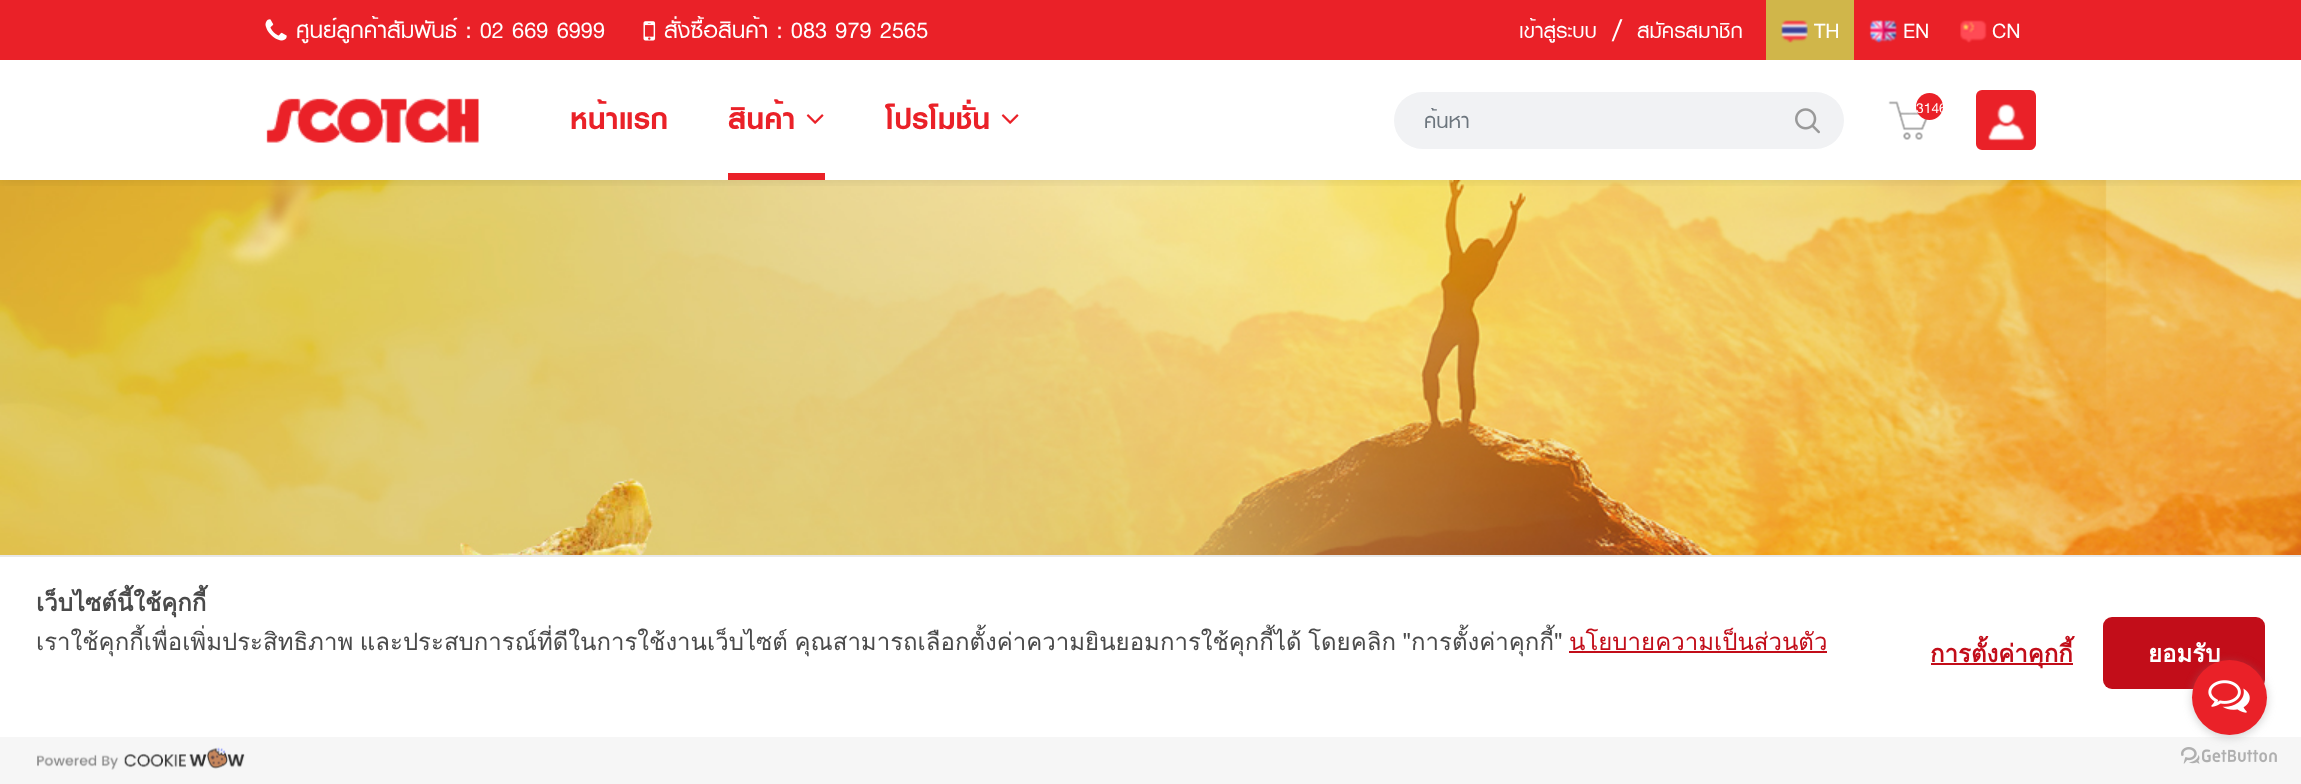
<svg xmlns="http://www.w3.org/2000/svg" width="2301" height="784">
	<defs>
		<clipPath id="clip1"><rect x="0" y="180" width="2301" height="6" /></clipPath>
		<clipPath id="clip2"><rect x="1424" y="104" width="316" height="33" /></clipPath>
	</defs>
	<rect width="100%" height="100%" fill="#FFFFFF" />
	<image x="0" y="180" width="2301" height="375" href="assets/img11.png" />
	<g clip-path="url(#clip1)">
		<rect x="0" y="0" width="2301" height="180" fill="#000000" fill-opacity="0.1" filter="blur(7.5px)" />
	</g>
	<rect x="0" y="0" width="2301" height="60" fill="#EA2128" />
	<image x="265" y="19" width="22" height="22" href="assets/img1.png" />
	<text x="296" y="38" font-family="'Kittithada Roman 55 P'" font-size="33" fill="#FFFFFF">ศูนย์ลูกค้าสัมพันธ์ : 02 669 6999</text>
	<image x="643" y="21" width="13" height="20" href="assets/img2.png" />
	<text x="664" y="38" font-family="'Kittithada Roman 55 P'" font-size="33" fill="#FFFFFF">สั่งซื้อสินค้า : 083 979 2565</text>
	<text x="1519" y="38" font-family="'Kittithada Roman 55 P'" font-size="30" fill="#FFFFFF">เข้าสู่ระบบ</text>
	<text x="1612" y="41" font-family="'Kittithada Roman 55 P'" font-size="45" fill="#FFFFFF">/</text>
	<text x="1637" y="38" font-family="'Kittithada Roman 55 P'" font-size="30" fill="#FFFFFF">สมัครสมาชิก</text>
	<rect x="1766" y="0" width="88" height="60" fill="#D0B64A" />
	<image x="1781" y="20" width="27" height="23" href="assets/img3.png" />
	<text x="1814" y="38" font-family="'Kittithada Roman 55 P'" font-size="30" fill="#FFFFFF">TH</text>
	<image x="1869" y="20" width="28" height="23" href="assets/img4.png" />
	<text x="1903" y="38" font-family="'Kittithada Roman 55 P'" font-size="30" fill="#FFFFFF">EN</text>
	<image x="1960" y="20" width="27" height="23" href="assets/img5.png" />
	<text x="1992" y="38" font-family="'Kittithada Roman 55 P'" font-size="30" fill="#FFFFFF">CN</text>
	<image x="266" y="98" width="213" height="45" href="assets/img6.png" />
	<g font-family="'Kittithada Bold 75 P'" font-size="42" font-weight="700" fill="#EA2128">
		<text x="570" y="129">หน้าแรก</text>
		<text x="728" y="129">สินค้า</text>
	</g>
	<image x="806" y="114" width="18" height="10" href="assets/img7.png" />
	<rect x="728" y="173" width="97" height="7" fill="#EA2128" />
	<text x="885" y="129" font-family="'Kittithada Bold 75 P'" font-size="42" font-weight="700" fill="#EA2128">โปรโมชั่น</text>
	<image x="1001" y="114" width="18" height="10" href="assets/img7.png" />
	<image x="1888" y="101" width="40" height="39" href="assets/img8.png" />
	<circle cx="1929.5" cy="106.5" r="13.5" fill="#EA2128" />
	<text x="1916" y="113" font-family="'Kittithada Roman 55 P'" font-size="21" fill="#FFFFFF">3146</text>
	<rect x="1976" y="90" width="60" height="60" rx="6" fill="#EA2128" />
	<image x="1988" y="104" width="37" height="37" href="assets/img9.png" />
	<rect x="1394" y="92" width="450" height="57" rx="28.5" fill="#F1F2F4" />
	<g clip-path="url(#clip2)">
		<text x="1424" y="128" font-family="'Kittithada Roman 55 P'" font-size="30" fill="#6C757D">ค้นหา</text>
	</g>
	<image x="1795" y="108" width="25" height="26" href="assets/img10.png" />
	<rect x="0" y="555" width="2301" height="2" fill="#E8E8E8" />
	<text x="36" y="611" font-family="Loma" font-size="24" font-weight="700" fill="#4A4A4A">เว็บไซต์นี้ใช้คุกกี้</text>
	<text x="36" y="650" word-spacing="-1.5" font-family="Loma" font-size="24" fill="#4A4A4A">เราใช้คุกกี้เพื่อเพิ่มประสิทธิภาพ และประสบการณ์ที่ดีในการใช้งานเว็บไซต์ คุณสามารถเลือกตั้งค่าความยินยอมการใช้คุกกี้ได้ โดยคลิก "การตั้งค่าคุกกี้"</text>
	<text x="1569" y="650" font-family="Loma" font-size="24" fill="#C20D19">นโยบายความเป็นส่วนตัว</text>
	<rect x="1569" y="651" width="258" height="2" fill="#C20D19" />
	<rect x="1931" y="663" width="142" height="2" fill="#C20D19" />
	<text x="1930" y="662" font-family="Loma" font-size="24" font-weight="700" fill="#C20D19">การตั้งค่าคุกกี้</text>
	<rect x="2103" y="617" width="162" height="72" rx="9" fill="#C20D19" />
	<text x="2148" y="662" font-family="Loma" font-size="24" font-weight="700" fill="#FFFFFF">ยอมรับ</text>
	<rect x="0" y="737" width="2301" height="47" fill="#F6F6F6" />
	<image x="37" y="747" width="208" height="23" href="assets/img12.png" />
	<image x="2181" y="747" width="96" height="17" href="assets/img14.png" />
	<rect x="2192" y="662" width="75" height="75" rx="37.5" fill="#888888" fill-opacity="0.4" filter="blur(5px)" />
	<circle cx="2229.5" cy="697.5" r="37.5" fill="#EA2128" />
	<image x="2208" y="680" width="42" height="33" href="assets/img13.png" />
</svg>
